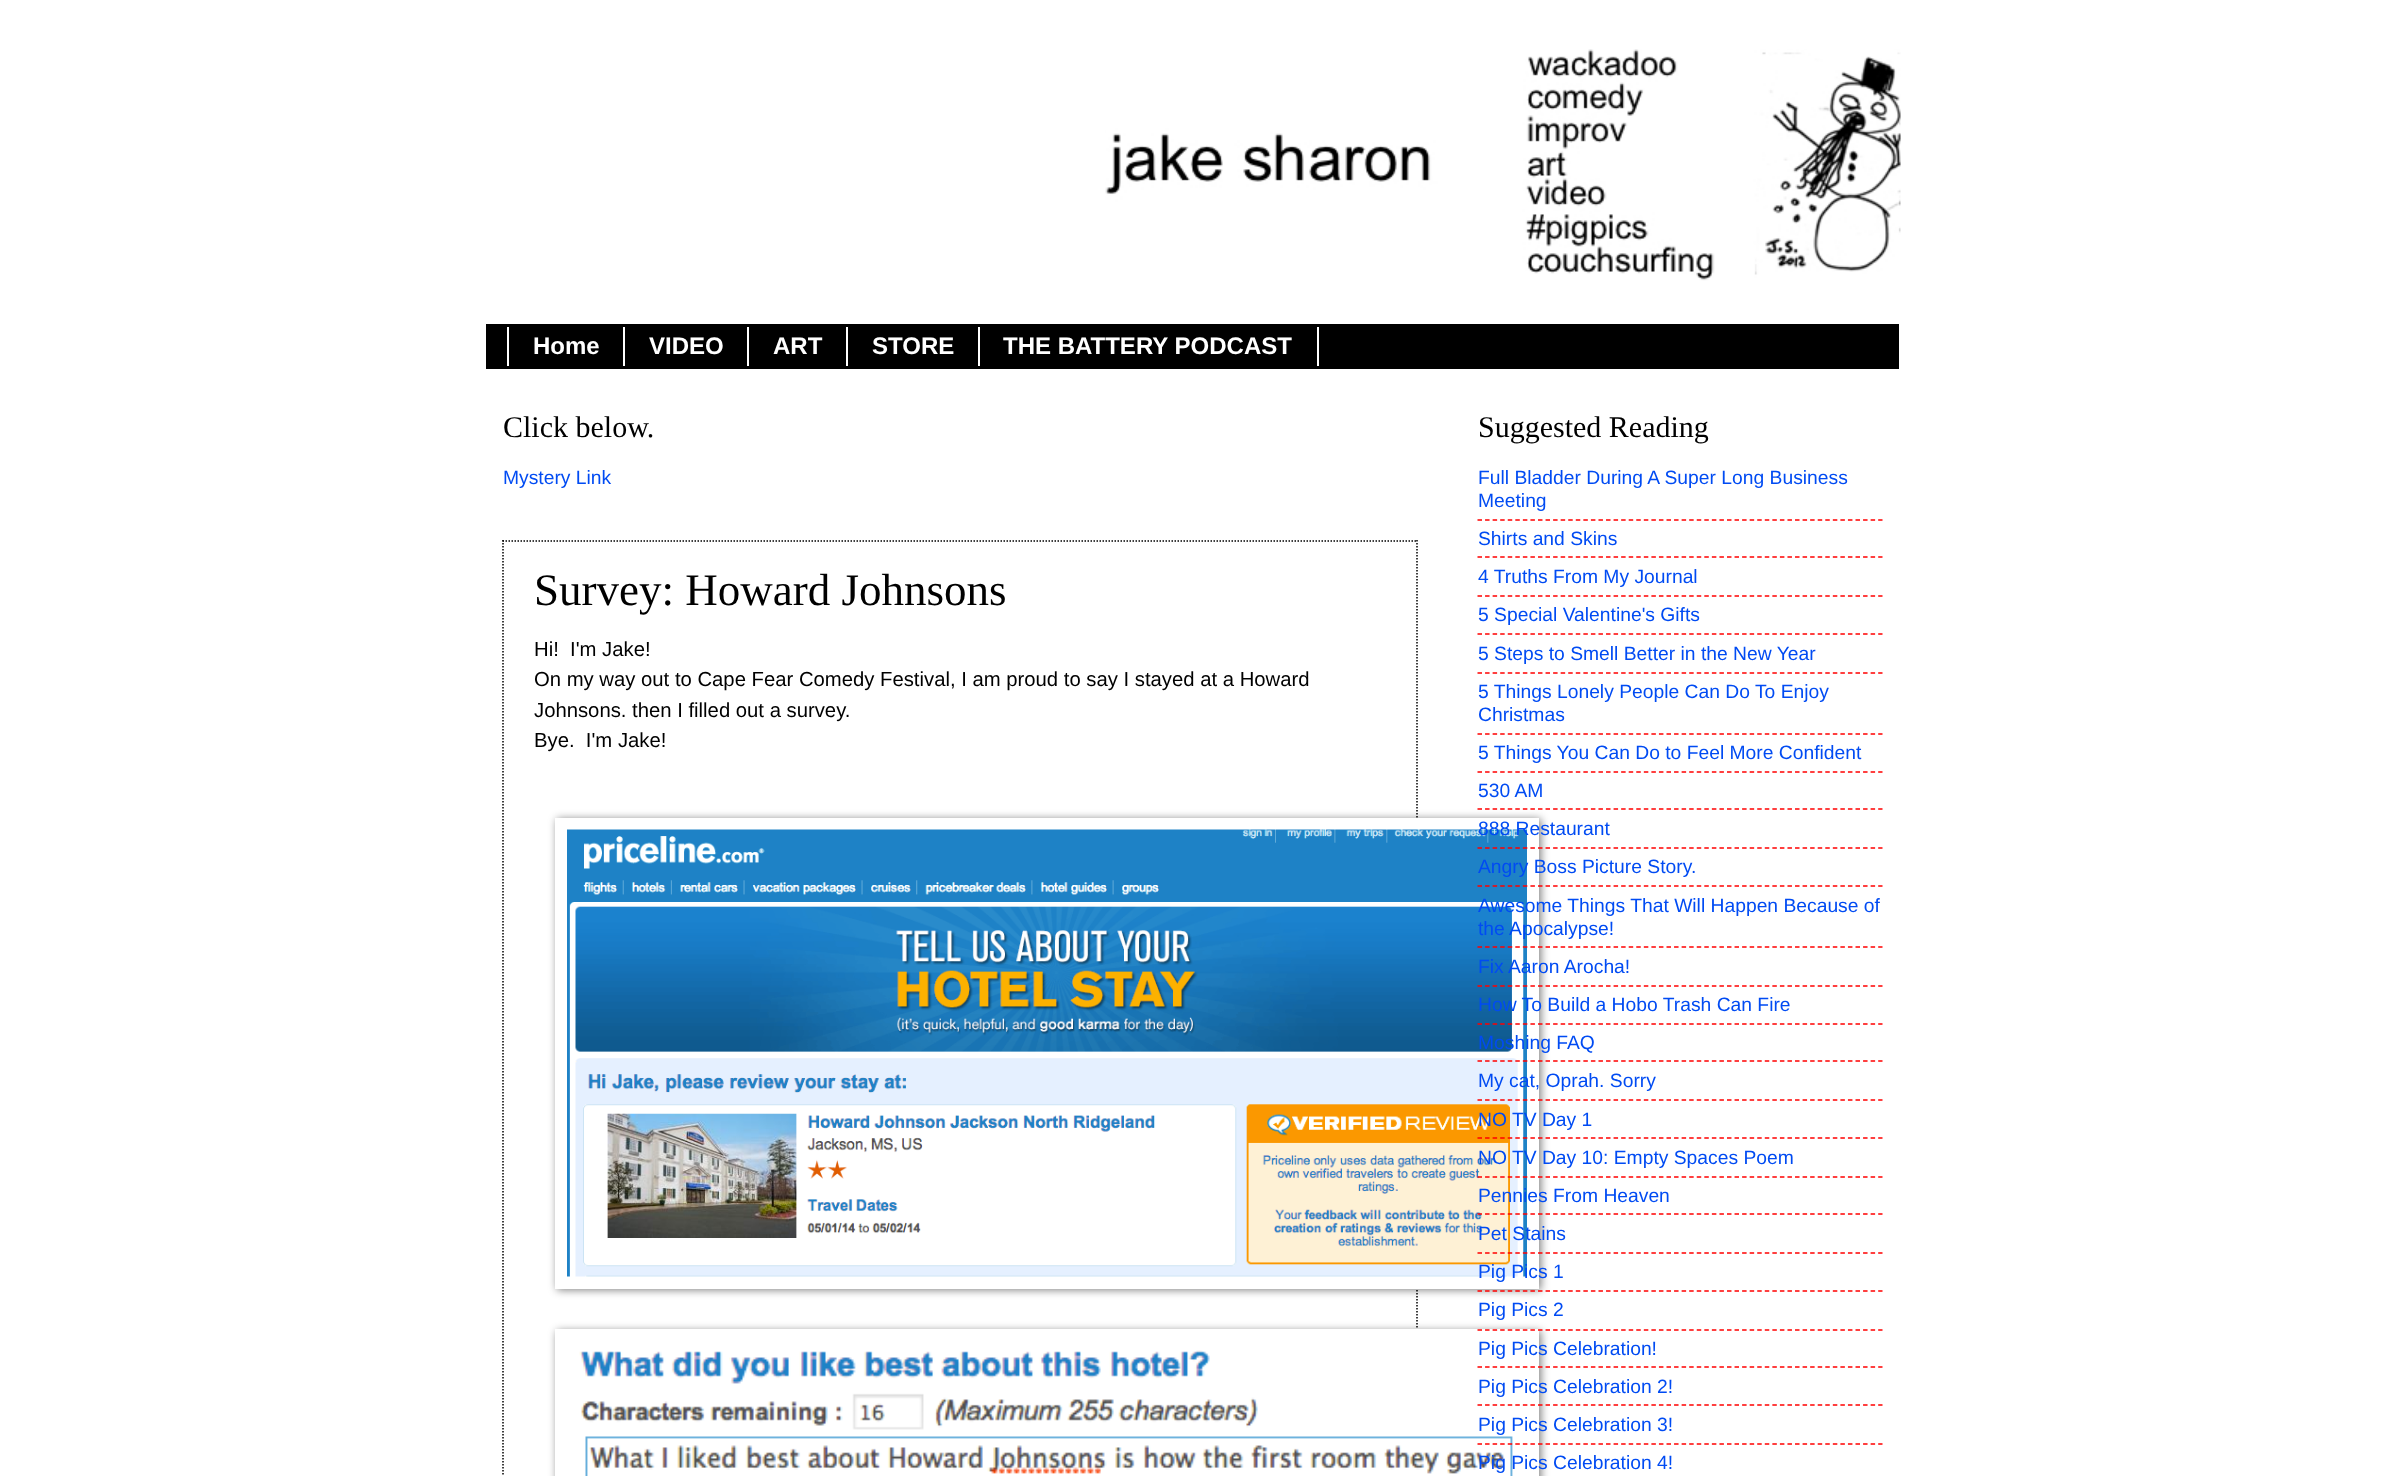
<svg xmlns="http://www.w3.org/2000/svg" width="2385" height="1476">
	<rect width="100%" height="100%" fill="#FFFFFF" />
	<image x="1105" y="49" width="796" height="232" href="assets/img1.png" />
	<rect x="486" y="324" width="1413" height="45" fill="#000000" />
	<rect x="623" y="327" width="2" height="39" fill="#FFFFFF" />
	<rect x="507" y="327" width="2" height="39" fill="#FFFFFF" />
	<text x="533" y="354" font-family="Liberation Sans" font-size="24" font-weight="700" fill="#FFFFFF">Home</text>
	<rect x="747" y="327" width="2" height="39" fill="#FFFFFF" />
	<text x="649" y="354" font-family="Liberation Sans" font-size="24" font-weight="700" fill="#FFFFFF">VIDEO</text>
	<rect x="846" y="327" width="2" height="39" fill="#FFFFFF" />
	<text x="773" y="354" font-family="Liberation Sans" font-size="24" font-weight="700" fill="#FFFFFF">ART</text>
	<rect x="978" y="327" width="2" height="39" fill="#FFFFFF" />
	<text x="872" y="354" font-family="Liberation Sans" font-size="24" font-weight="700" fill="#FFFFFF">STORE</text>
	<rect x="1317" y="327" width="2" height="39" fill="#FFFFFF" />
	<text x="1003" y="354" font-family="Liberation Sans" font-size="24" font-weight="700" fill="#FFFFFF">THE BATTERY PODCAST</text>
	<text x="503" y="437" font-family="Liberation Serif" font-size="30" fill="#000000">Click below.</text>
	<text x="503" y="484" font-family="Liberation Sans" font-size="19.3" fill="#004BF3">Mystery Link</text>
	<path d="M502.5 541H1417.5" fill="none" stroke="#000000" stroke-width="1.5" stroke-dasharray="1.5 1.5" />
	<path d="M1417 540V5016" fill="none" stroke="#000000" stroke-width="1.5" stroke-dasharray="1.5 1.5" />
	<path d="M503 540V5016" fill="none" stroke="#000000" stroke-width="1.5" stroke-dasharray="1.5 1.5" />
	<text x="534" y="605" font-family="Liberation Serif" font-size="45" fill="#000000">Survey: Howard Johnsons</text>
	<g font-family="Liberation Sans" font-size="20.3" fill="#000000">
		<text x="534" y="656" xml:space="preserve">Hi!  I'm Jake!</text>
		<text x="534" y="686">On my way out to Cape Fear Comedy Festival, I am proud to say I stayed at a Howard</text>
		<text x="534" y="717">Johnsons. then I filled out a survey.</text>
		<text x="534" y="747" xml:space="preserve">Bye.  I'm Jake!</text>
	</g>
	<rect x="557" y="819" width="984" height="471" fill="#000000" fill-opacity="0.5" filter="blur(4px)" />
	<rect x="555" y="818" width="984" height="471" fill="#FFFFFF" />
	<image x="567" y="829" width="960" height="448" href="assets/img2.png" />
	<rect x="557" y="1331" width="984" height="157" fill="#000000" fill-opacity="0.5" filter="blur(4px)" />
	<rect x="555" y="1329" width="984" height="147" fill="#FFFFFF" />
	<image x="579" y="1350" width="934" height="126" href="assets/img3.png" />
	<text x="1478" y="437" font-family="Liberation Serif" font-size="30" fill="#000000">Suggested Reading</text>
	<g font-family="Liberation Sans" font-size="19.3" fill="#004BF3">
		<text x="1478" y="484">Full Bladder During A Super Long Business</text>
		<text x="1478" y="507">Meeting</text>
	</g>
	<path d="M1477.5 520H1882.5" fill="none" stroke="#FF0000" stroke-width="1.5" stroke-dasharray="4.5 3.06" />
	<text x="1478" y="545" font-family="Liberation Sans" font-size="19.3" fill="#004BF3">Shirts and Skins</text>
	<path d="M1477.5 557H1882.5" fill="none" stroke="#FF0000" stroke-width="1.5" stroke-dasharray="4.5 3.06" />
	<text x="1478" y="583" font-family="Liberation Sans" font-size="19.3" fill="#004BF3">4 Truths From My Journal</text>
	<path d="M1477.5 596H1882.5" fill="none" stroke="#FF0000" stroke-width="1.5" stroke-dasharray="4.5 3.06" />
	<text x="1478" y="621" font-family="Liberation Sans" font-size="19.3" fill="#004BF3">5 Special Valentine's Gifts</text>
	<path d="M1477.5 634H1882.5" fill="none" stroke="#FF0000" stroke-width="1.5" stroke-dasharray="4.5 3.06" />
	<text x="1478" y="660" font-family="Liberation Sans" font-size="19.3" fill="#004BF3">5 Steps to Smell Better in the New Year</text>
	<path d="M1477.5 673H1882.5" fill="none" stroke="#FF0000" stroke-width="1.5" stroke-dasharray="4.5 3.06" />
	<g font-family="Liberation Sans" font-size="19.3" fill="#004BF3">
		<text x="1478" y="698">5 Things Lonely People Can Do To Enjoy</text>
		<text x="1478" y="721">Christmas</text>
	</g>
	<path d="M1477.5 734H1882.5" fill="none" stroke="#FF0000" stroke-width="1.5" stroke-dasharray="4.5 3.06" />
	<text x="1478" y="759" font-family="Liberation Sans" font-size="19.3" fill="#004BF3">5 Things You Can Do to Feel More Confident</text>
	<path d="M1477.5 772H1882.5" fill="none" stroke="#FF0000" stroke-width="1.5" stroke-dasharray="4.5 3.06" />
	<text x="1478" y="797" font-family="Liberation Sans" font-size="19.3" fill="#004BF3">530 AM</text>
	<path d="M1477.5 809H1882.5" fill="none" stroke="#FF0000" stroke-width="1.5" stroke-dasharray="4.5 3.06" />
	<text x="1478" y="835" font-family="Liberation Sans" font-size="19.3" fill="#004BF3">888 Restaurant</text>
	<path d="M1477.5 848H1882.5" fill="none" stroke="#FF0000" stroke-width="1.5" stroke-dasharray="4.5 3.06" />
	<text x="1478" y="873" font-family="Liberation Sans" font-size="19.3" fill="#004BF3">Angry Boss Picture Story.</text>
	<path d="M1477.5 886H1882.5" fill="none" stroke="#FF0000" stroke-width="1.5" stroke-dasharray="4.5 3.06" />
	<g font-family="Liberation Sans" font-size="19.3" fill="#004BF3">
		<text x="1478" y="912">Awesome Things That Will Happen Because of</text>
		<text x="1478" y="935">the Apocalypse!</text>
	</g>
	<path d="M1477.5 947H1882.5" fill="none" stroke="#FF0000" stroke-width="1.5" stroke-dasharray="4.5 3.06" />
	<text x="1478" y="973" font-family="Liberation Sans" font-size="19.3" fill="#004BF3">Fix Aaron Arocha!</text>
	<path d="M1477.5 986H1882.5" fill="none" stroke="#FF0000" stroke-width="1.5" stroke-dasharray="4.5 3.06" />
	<text x="1478" y="1011" font-family="Liberation Sans" font-size="19.3" fill="#004BF3">How To Build a Hobo Trash Can Fire</text>
	<path d="M1477.5 1024H1882.5" fill="none" stroke="#FF0000" stroke-width="1.5" stroke-dasharray="4.5 3.06" />
	<text x="1478" y="1049" font-family="Liberation Sans" font-size="19.3" fill="#004BF3">Moshing FAQ</text>
	<path d="M1477.5 1061H1882.5" fill="none" stroke="#FF0000" stroke-width="1.5" stroke-dasharray="4.5 3.06" />
	<text x="1478" y="1087" font-family="Liberation Sans" font-size="19.3" fill="#004BF3">My cat, Oprah. Sorry</text>
	<path d="M1477.5 1100H1882.5" fill="none" stroke="#FF0000" stroke-width="1.5" stroke-dasharray="4.5 3.06" />
	<text x="1478" y="1126" font-family="Liberation Sans" font-size="19.3" fill="#004BF3">NO TV Day 1</text>
	<path d="M1477.5 1138H1882.5" fill="none" stroke="#FF0000" stroke-width="1.5" stroke-dasharray="4.5 3.06" />
	<text x="1478" y="1164" font-family="Liberation Sans" font-size="19.3" fill="#004BF3">NO TV Day 10: Empty Spaces Poem</text>
	<path d="M1477.5 1177H1882.5" fill="none" stroke="#FF0000" stroke-width="1.5" stroke-dasharray="4.5 3.06" />
	<text x="1478" y="1202" font-family="Liberation Sans" font-size="19.3" fill="#004BF3">Pennies From Heaven</text>
	<path d="M1477.5 1214H1882.5" fill="none" stroke="#FF0000" stroke-width="1.5" stroke-dasharray="4.5 3.06" />
	<text x="1478" y="1240" font-family="Liberation Sans" font-size="19.3" fill="#004BF3">Pet Stains</text>
	<path d="M1477.5 1253H1882.5" fill="none" stroke="#FF0000" stroke-width="1.5" stroke-dasharray="4.5 3.06" />
	<text x="1478" y="1278" font-family="Liberation Sans" font-size="19.3" fill="#004BF3">Pig Pics 1</text>
	<path d="M1477.5 1291H1882.5" fill="none" stroke="#FF0000" stroke-width="1.5" stroke-dasharray="4.5 3.06" />
	<text x="1478" y="1316" font-family="Liberation Sans" font-size="19.3" fill="#004BF3">Pig Pics 2</text>
	<path d="M1477.5 1330H1882.5" fill="none" stroke="#FF0000" stroke-width="1.5" stroke-dasharray="4.5 3.06" />
	<text x="1478" y="1355" font-family="Liberation Sans" font-size="19.3" fill="#004BF3">Pig Pics Celebration!</text>
	<path d="M1477.5 1367H1882.5" fill="none" stroke="#FF0000" stroke-width="1.5" stroke-dasharray="4.5 3.06" />
	<text x="1478" y="1393" font-family="Liberation Sans" font-size="19.3" fill="#004BF3">Pig Pics Celebration 2!</text>
	<path d="M1477.5 1405H1882.5" fill="none" stroke="#FF0000" stroke-width="1.5" stroke-dasharray="4.5 3.06" />
	<text x="1478" y="1431" font-family="Liberation Sans" font-size="19.3" fill="#004BF3">Pig Pics Celebration 3!</text>
	<path d="M1477.5 1444H1882.5" fill="none" stroke="#FF0000" stroke-width="1.5" stroke-dasharray="4.5 3.06" />
	<text x="1478" y="1469" font-family="Liberation Sans" font-size="19.3" fill="#004BF3">Pig Pics Celebration 4!</text>
</svg>
